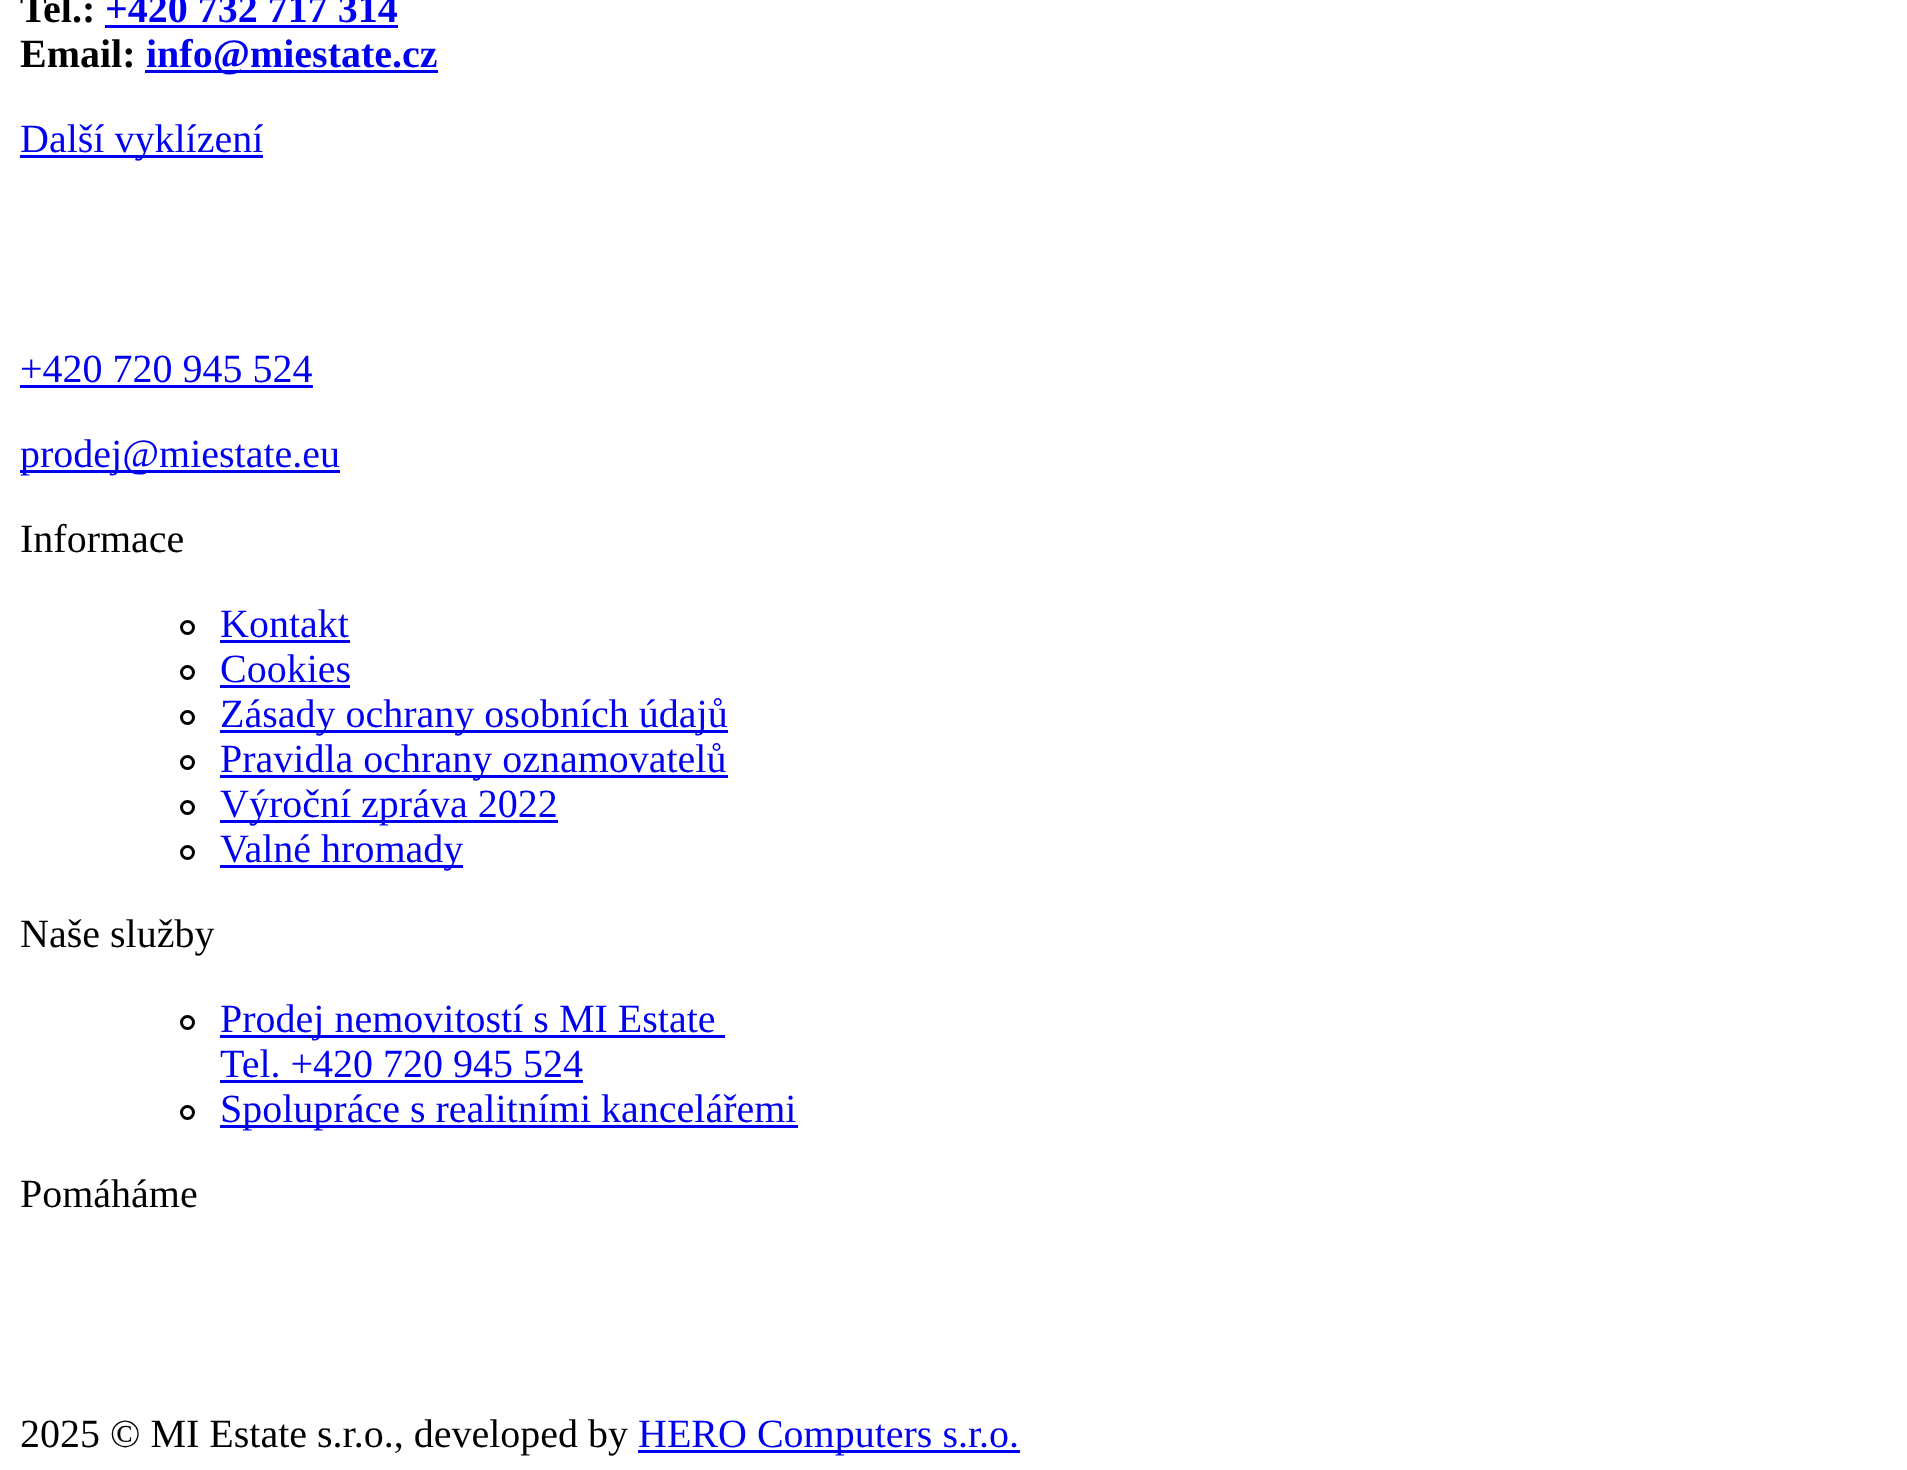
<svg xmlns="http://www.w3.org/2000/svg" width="1907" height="1470">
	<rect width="100%" height="100%" fill="#FFFFFF" />
	<text x="20" y="22" font-family="Liberation Serif" font-size="40" font-weight="700" fill="#000000">Tel.:</text>
	<text x="105" y="22" font-family="Liberation Serif" font-size="40" font-weight="700" fill="#0000EE">+420 732 717 314</text>
	<rect x="105" y="25" width="293" height="3" fill="#0000EE" />
	<text x="20" y="67" font-family="Liberation Serif" font-size="40" font-weight="700" fill="#000000">Email:</text>
	<rect x="145" y="70" width="293" height="3" fill="#0000EE" />
	<text x="146" y="67" font-family="Liberation Serif" font-size="40" font-weight="700" fill="#0000EE">info@miestate.cz</text>
	<rect x="20" y="155" width="243" height="3" fill="#0000EE" />
	<g font-family="Liberation Serif" font-size="40" fill="#0000EE">
		<text x="20" y="152">Další vyklízení</text>
		<text x="20" y="382">+420 720 945 524</text>
	</g>
	<rect x="20" y="385" width="293" height="3" fill="#0000EE" />
	<rect x="20" y="470" width="320" height="3" fill="#0000EE" />
	<text x="20" y="467" font-family="Liberation Serif" font-size="40" fill="#0000EE">prodej@miestate.eu</text>
	<text x="20" y="552" font-family="Liberation Serif" font-size="40" fill="#000000">Informace</text>
	<circle cx="187.5" cy="627.5" r="6" fill="none" stroke="#000000" stroke-width="3" />
	<text x="220" y="637" font-family="Liberation Serif" font-size="40" fill="#0000EE">Kontakt</text>
	<rect x="220" y="640" width="130" height="3" fill="#0000EE" />
	<circle cx="187.5" cy="672.5" r="6" fill="none" stroke="#000000" stroke-width="3" />
	<text x="220" y="682" font-family="Liberation Serif" font-size="40" fill="#0000EE">Cookies</text>
	<rect x="220" y="685" width="130" height="3" fill="#0000EE" />
	<circle cx="187.5" cy="717.5" r="6" fill="none" stroke="#000000" stroke-width="3" />
	<rect x="220" y="730" width="508" height="3" fill="#0000EE" />
	<text x="220" y="727" font-family="Liberation Serif" font-size="40" fill="#0000EE">Zásady ochrany osobních údajů</text>
	<circle cx="187.5" cy="762.5" r="6" fill="none" stroke="#000000" stroke-width="3" />
	<rect x="220" y="775" width="508" height="3" fill="#0000EE" />
	<text x="220" y="772" font-family="Liberation Serif" font-size="40" fill="#0000EE">Pravidla ochrany oznamovatelů</text>
	<circle cx="187.5" cy="807.5" r="6" fill="none" stroke="#000000" stroke-width="3" />
	<rect x="220" y="820" width="338" height="3" fill="#0000EE" />
	<text x="220" y="817" font-family="Liberation Serif" font-size="40" fill="#0000EE">Výroční zpráva 2022</text>
	<circle cx="187.5" cy="852.5" r="6" fill="none" stroke="#000000" stroke-width="3" />
	<rect x="220" y="865" width="243" height="3" fill="#0000EE" />
	<text x="220" y="862" font-family="Liberation Serif" font-size="40" fill="#0000EE">Valné hromady</text>
	<text x="20" y="947" font-family="Liberation Serif" font-size="40" fill="#000000">Naše služby</text>
	<circle cx="187.5" cy="1022.5" r="6" fill="none" stroke="#000000" stroke-width="3" />
	<rect x="220" y="1035" width="505" height="3" fill="#0000EE" />
	<g font-family="Liberation Serif" font-size="40" fill="#0000EE">
		<text x="220" y="1032">Prodej nemovitostí s MI Estate</text>
		<text x="220" y="1077">Tel. +420 720 945 524</text>
	</g>
	<rect x="220" y="1080" width="363" height="3" fill="#0000EE" />
	<circle cx="187.5" cy="1112.5" r="6" fill="none" stroke="#000000" stroke-width="3" />
	<rect x="220" y="1125" width="578" height="3" fill="#0000EE" />
	<text x="220" y="1122" font-family="Liberation Serif" font-size="40" fill="#0000EE">Spolupráce s realitními kancelářemi</text>
	<g font-family="Liberation Serif" font-size="40" fill="#000000">
		<text x="20" y="1207">Pomáháme</text>
		<text x="20" y="1447">2025 © MI Estate s.r.o., developed by</text>
	</g>
	<rect x="638" y="1450" width="382" height="3" fill="#0000EE" />
	<text x="638" y="1447" font-family="Liberation Serif" font-size="40" fill="#0000EE">HERO Computers s.r.o.</text>
</svg>
